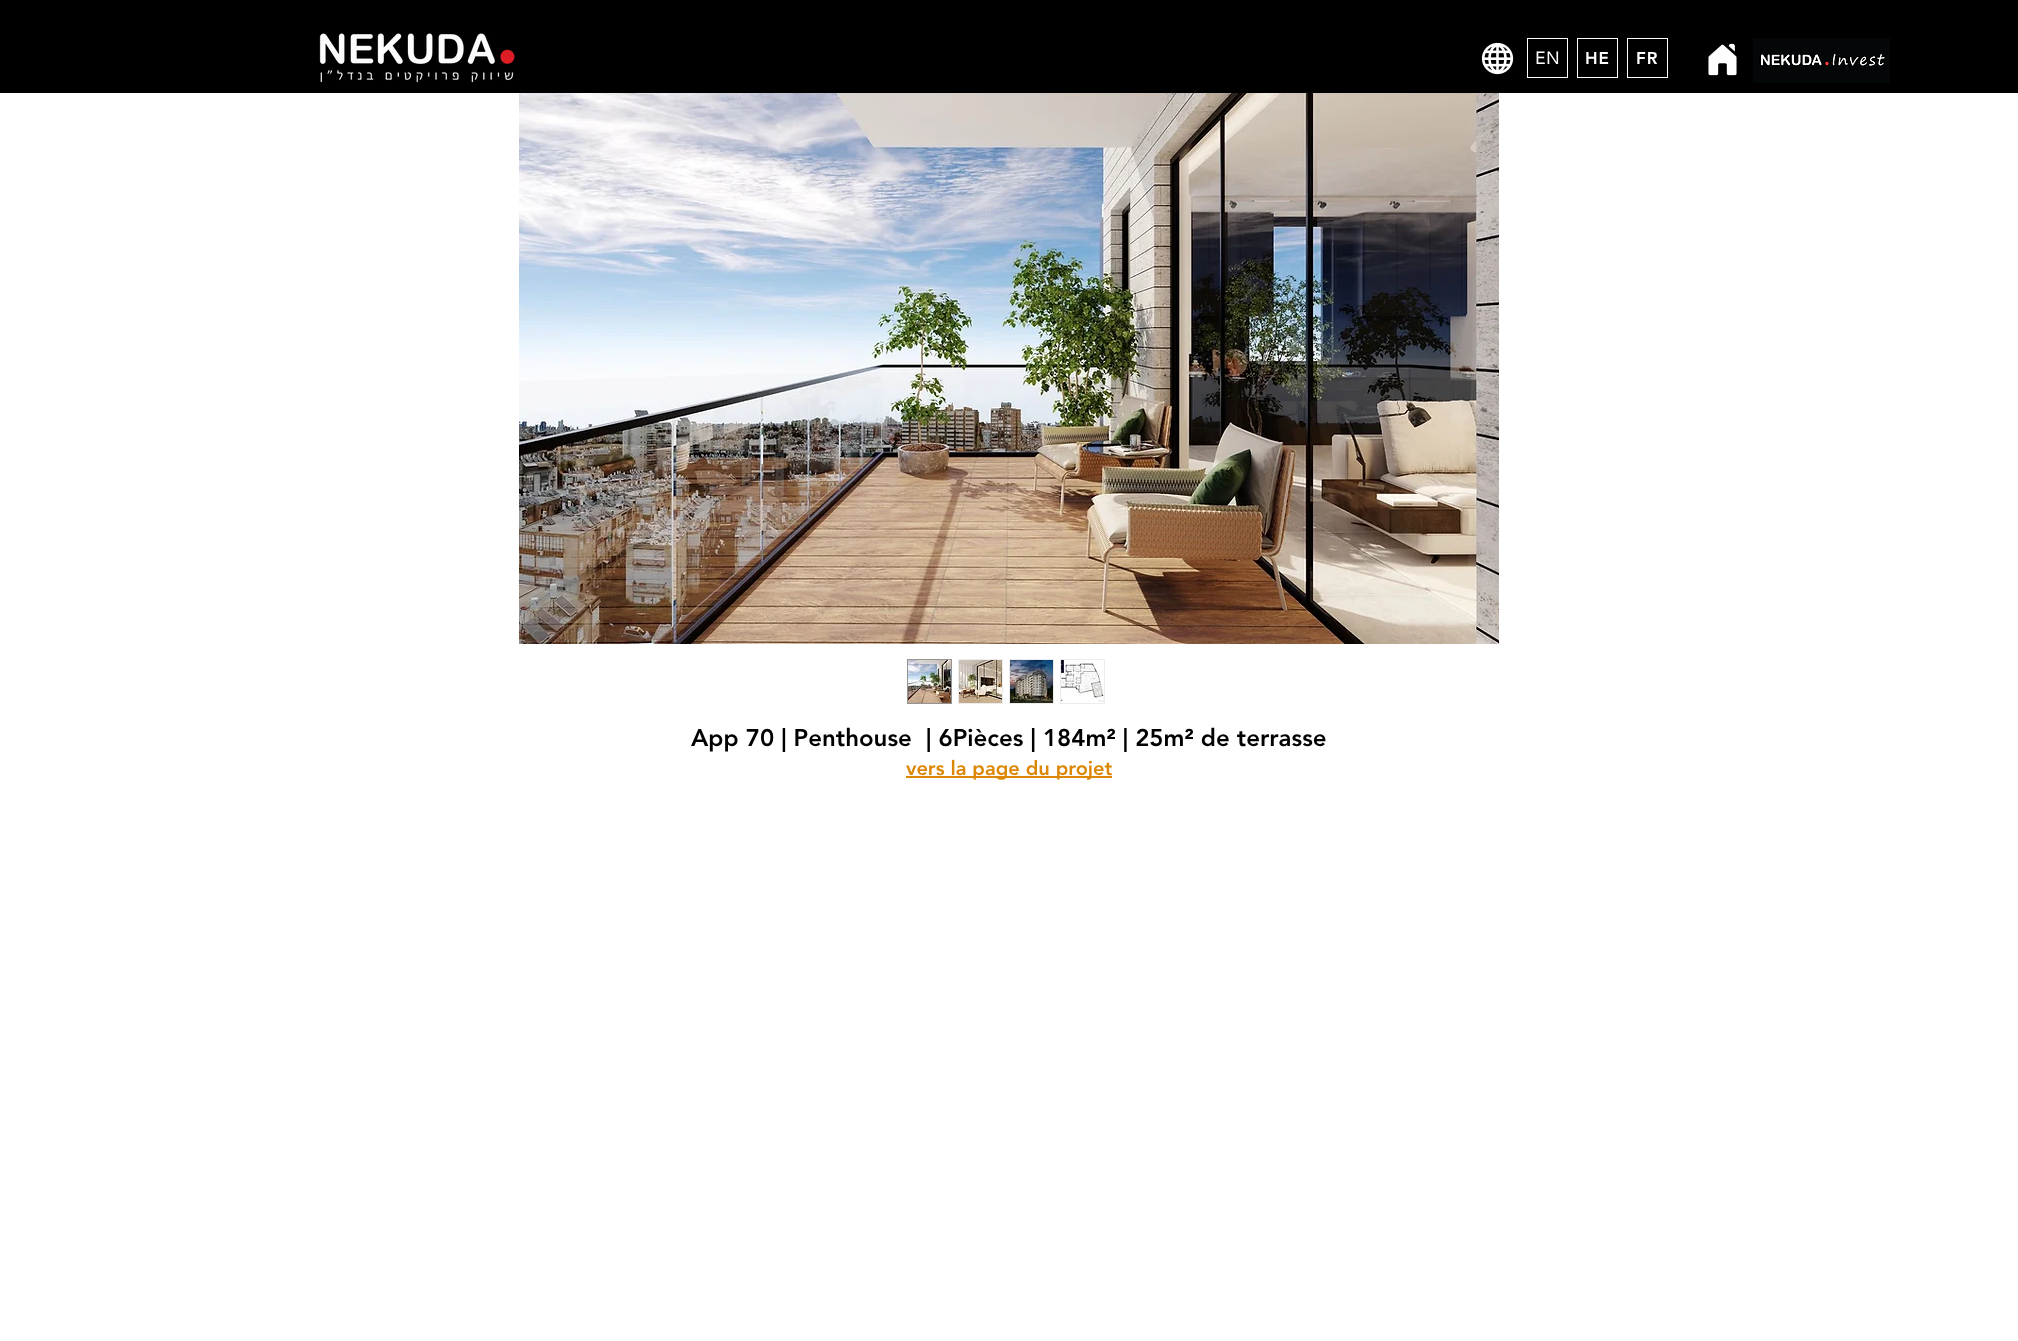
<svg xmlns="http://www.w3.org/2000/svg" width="2018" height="1341">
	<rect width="100%" height="100%" fill="#FFFFFF" />
	<rect x="0" y="0" width="2018" height="93" fill="#000000" />
	<image x="319" y="33" width="196" height="50" href="assets/img1.png" />
	<image x="1481" y="42" width="33" height="33" href="assets/img2.png" />
	<rect x="1527.5" y="38.5" width="40" height="39" fill="none" stroke="#FFFFFF" />
	<text x="1535" y="64" font-family="'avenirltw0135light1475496'" font-size="17" font-weight="700" letter-spacing="1" fill="#FFFFFF">EN</text>
	<rect x="1577.5" y="38.5" width="40" height="39" fill="none" stroke="#FFFFFF" />
	<text x="1585" y="64" font-family="'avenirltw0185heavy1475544'" font-size="17" font-weight="900" letter-spacing="1" fill="#FFFFFF">HE</text>
	<rect x="1627.5" y="38.5" width="40" height="39" fill="none" stroke="#FFFFFF" />
	<text x="1636" y="64" font-family="'avenirltw0185heavy1475544'" font-size="17" font-weight="900" letter-spacing="1" fill="#FFFFFF">FR</text>
	<image x="1708" y="43" width="29" height="33" href="assets/img3.png" />
	<image x="1753" y="38" width="137" height="45" href="assets/img4.png" />
	<image x="519" y="93" width="980" height="551" href="assets/img5.png" />
	<rect x="907.5" y="659.5" width="44" height="44" fill="none" stroke="#949494" />
	<image x="908" y="660" width="43" height="43" href="assets/img6.png" />
	<rect x="958" y="659" width="45" height="45" fill="#EDECEC" />
	<image x="959" y="660" width="43" height="43" href="assets/img7.png" />
	<rect x="1009" y="659" width="45" height="45" fill="#EDECEC" />
	<image x="1010" y="660" width="43" height="43" href="assets/img8.png" />
	<rect x="1060" y="659" width="45" height="45" fill="#EDECEC" />
	<image x="1061" y="660" width="43" height="43" href="assets/img9.png" />
	<text x="691" y="746" font-family="'avenirltw0185heavy1475544'" font-size="24" font-weight="900" fill="#000000" xml:space="preserve">App 70 | Penthouse  | 6Pièces | 184m² | 25m² de terrasse</text>
	<rect x="906" y="776" width="206" height="2" fill="#DC8705" />
	<text x="906" y="775" font-family="'avenirltw0185heavy1475544'" font-size="20" font-weight="900" fill="#DC8705">vers la page du projet</text>
</svg>
